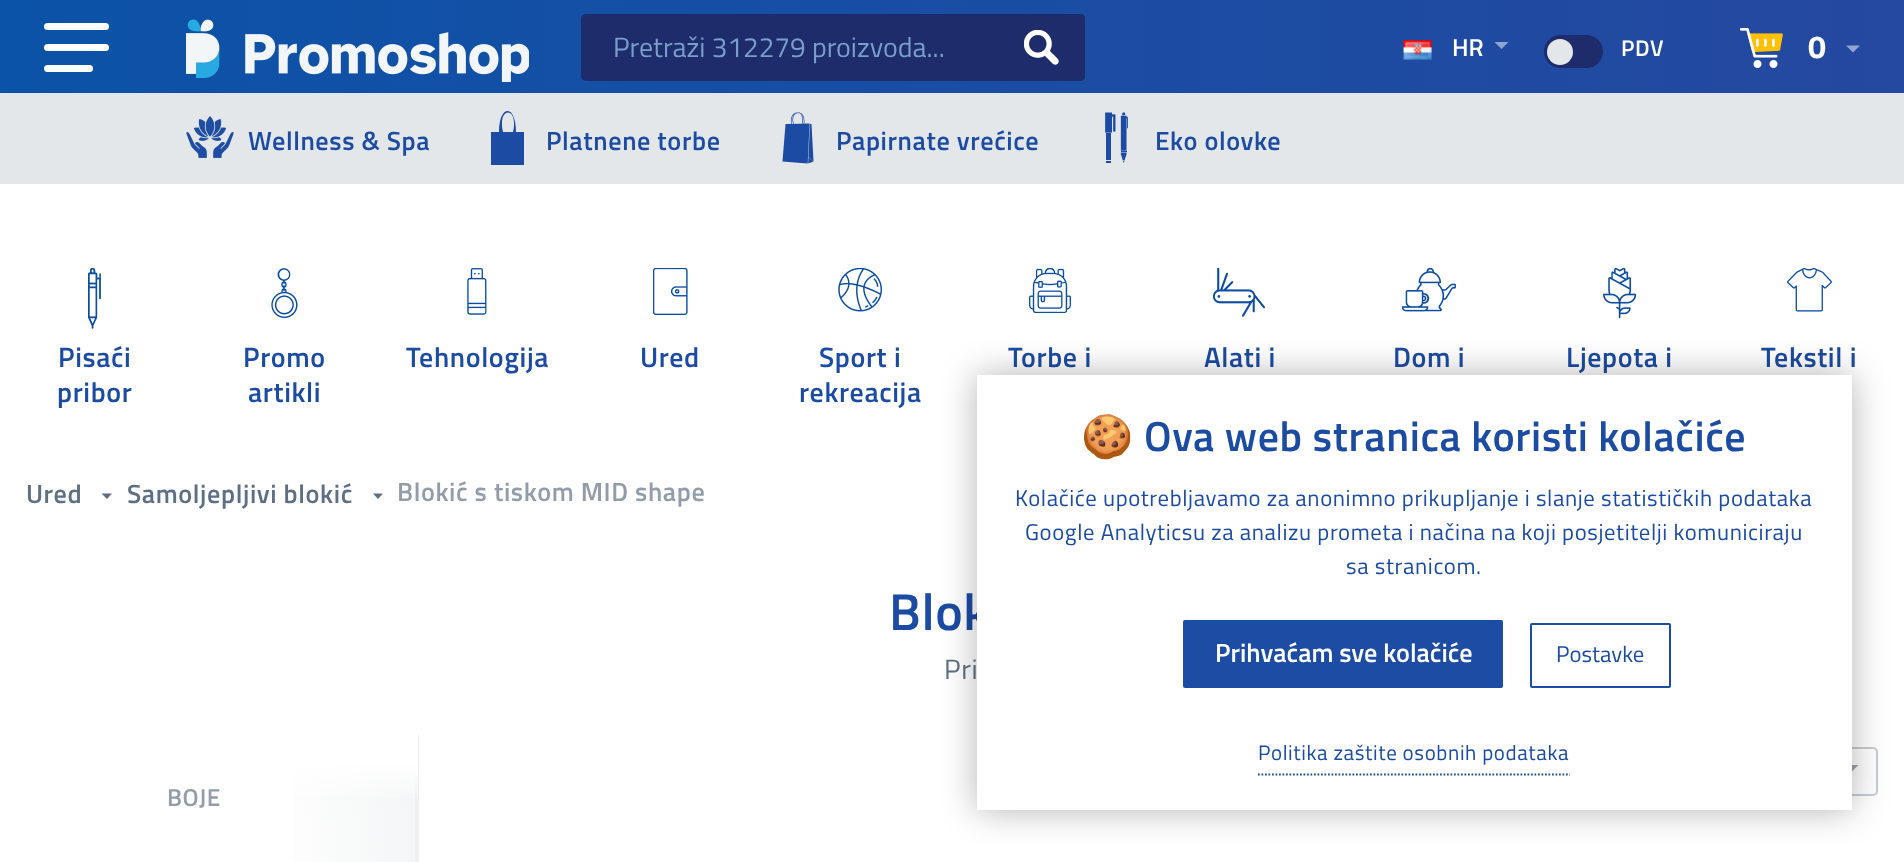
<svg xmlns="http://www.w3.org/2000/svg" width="1904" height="862">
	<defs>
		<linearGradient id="g1" gradientUnits="userSpaceOnUse" x1="0" y1="46" x2="1904" y2="46"><stop offset="0" stop-color="#0B53A8" /><stop offset="1" stop-color="#2548A0" /></linearGradient>
		<linearGradient id="g2" gradientUnits="userSpaceOnUse" x1="422" y1="818" x2="52" y2="850"><stop offset="0" stop-color="#F4F5F6" /><stop offset="0.43" stop-color="#FFFFFF" /></linearGradient>
		<linearGradient id="g3" gradientUnits="userSpaceOnUse" x1="239" y1="805" x2="239" y2="735"><stop offset="0" stop-color="#FFFFFF" stop-opacity="0" /><stop offset="0.6" stop-color="#FFFFFF" /></linearGradient>
	</defs>
	<rect width="100%" height="100%" fill="#FFFFFF" />
	<rect x="0" y="0" width="1904" height="93" fill="url(#g1)" />
	<rect x="44" y="23" width="65" height="7" rx="3.5" fill="#FFFFFF" />
	<rect x="44" y="44" width="65" height="7" rx="3.5" fill="#FFFFFF" />
	<rect x="44" y="65" width="49" height="7" rx="3.5" fill="#FFFFFF" />
	<image x="186" y="19" width="343" height="63" href="assets/img1.png" />
	<rect x="581" y="14" width="504" height="67" rx="5" fill="#1E2C6B" />
	<text x="613" y="57" font-family="Titillium Web" font-size="28" fill="#789ECB">Pretraži 312279 proizvoda...</text>
	<rect x="998" y="14" width="87" height="67" rx="5" fill="#1E2C6B" />
	<image x="1024" y="30" width="35" height="35" href="assets/img2.png" />
	<image x="1403" y="40" width="29" height="20" href="assets/img3.png" />
	<text x="1452" y="56" font-family="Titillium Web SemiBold" font-size="24.5" font-weight="600" fill="#FFFFFF">HR</text>
	<path d="M1494.5 42H1508.5L1501.5 49Z" fill="#8FA5D1" />
	<rect x="1544" y="35" width="59" height="33" rx="16.5" fill="#1E2C6B" />
	<circle cx="1560" cy="52" r="13" fill="#E4E7E9" />
	<text x="1621" y="56" font-family="Titillium Web SemiBold" font-size="22.75" font-weight="600" letter-spacing="0.6" fill="#FFFFFF">PDV</text>
	<image x="1740" y="28" width="43" height="40" href="assets/img4.png" />
	<text x="1808" y="58" font-family="Titillium Web" font-size="32" font-weight="700" fill="#FFFFFF">0</text>
	<path d="M1846 45.5H1860L1853 52.5Z" fill="#92A4D0" />
	<rect x="0" y="93" width="1904" height="91" fill="#E4E7E9" />
	<image x="186" y="116" width="48" height="42" href="assets/img5.png" />
	<text x="248" y="150" font-family="Titillium Web SemiBold" font-size="26.25" font-weight="600" letter-spacing="0.6" fill="#1C4BA3">Wellness &amp; Spa</text>
	<path d="M491 132H499C499 104 516 104 516 132H524V165H491ZM503 132H513C519 106 497 106 503 132Z" fill="#1C4BA3" />
	<text x="546" y="150" font-family="Titillium Web SemiBold" font-size="26.25" font-weight="600" letter-spacing="0.6" fill="#1C4BA3">Platnene torbe</text>
	<image x="782" y="112" width="32" height="52" href="assets/img6.png" />
	<text x="836" y="150" font-family="Titillium Web SemiBold" font-size="26.25" font-weight="600" letter-spacing="0.6" fill="#1C4BA3">Papirnate vrećice</text>
	<image x="1105" y="112" width="23" height="51" href="assets/img7.png" />
	<text x="1155" y="150" font-family="Titillium Web SemiBold" font-size="26.25" font-weight="600" letter-spacing="0.6" fill="#1C4BA3">Eko olovke</text>
	<image x="88" y="268" width="13" height="61" href="assets/img8.png" />
	<g font-family="Titillium Web SemiBold" font-size="28" font-weight="600" letter-spacing="0.6" fill="#1C4BA3">
		<text x="58" y="367">Pisaći</text>
		<text x="57" y="402">pribor</text>
	</g>
	<image x="271" y="268" width="27" height="50" href="assets/img9.png" />
	<g font-family="Titillium Web SemiBold" font-size="28" font-weight="600" letter-spacing="0.6" fill="#1C4BA3">
		<text x="243" y="367">Promo</text>
		<text x="248" y="402">artikli</text>
	</g>
	<image x="467" y="268" width="20" height="47" href="assets/img10.png" />
	<text x="406" y="367" font-family="Titillium Web SemiBold" font-size="28" font-weight="600" letter-spacing="0.6" fill="#1C4BA3">Tehnologija</text>
	<image x="653" y="268" width="35" height="47" href="assets/img11.png" />
	<text x="640" y="367" font-family="Titillium Web SemiBold" font-size="28" font-weight="600" letter-spacing="0.6" fill="#1C4BA3">Ured</text>
	<image x="838" y="268" width="44" height="44" href="assets/img12.png" />
	<g font-family="Titillium Web SemiBold" font-size="28" font-weight="600" letter-spacing="0.6" fill="#1C4BA3">
		<text x="819" y="367">Sport i</text>
		<text x="799" y="402">rekreacija</text>
	</g>
	<image x="1029" y="268" width="42" height="45" href="assets/img13.png" />
	<text x="1008" y="367" font-family="Titillium Web SemiBold" font-size="28" font-weight="600" letter-spacing="0.6" fill="#1C4BA3">Torbe i</text>
	<image x="1213" y="268" width="52" height="49" href="assets/img14.png" />
	<text x="1204" y="367" font-family="Titillium Web SemiBold" font-size="28" font-weight="600" letter-spacing="0.6" fill="#1C4BA3">Alati i</text>
	<image x="1402" y="268" width="54" height="44" href="assets/img15.png" />
	<text x="1393" y="367" font-family="Titillium Web SemiBold" font-size="28" font-weight="600" letter-spacing="0.6" fill="#1C4BA3">Dom i</text>
	<image x="1603" y="268" width="33" height="51" href="assets/img16.png" />
	<text x="1566" y="367" font-family="Titillium Web SemiBold" font-size="28" font-weight="600" letter-spacing="0.6" fill="#1C4BA3">Ljepota i</text>
	<image x="1787" y="268" width="45" height="44" href="assets/img17.png" />
	<text x="1761" y="367" font-family="Titillium Web SemiBold" font-size="28" font-weight="600" letter-spacing="0.6" fill="#1C4BA3">Tekstil i</text>
	<text x="26" y="503" font-family="Titillium Web SemiBold" font-size="26.25" font-weight="600" letter-spacing="0.6" fill="#5E6F82">Ured</text>
	<path d="M101.5 493.5H112L107 499Z" fill="#5E6F82" />
	<text x="127" y="503" font-family="Titillium Web SemiBold" font-size="26.25" font-weight="600" letter-spacing="0.6" fill="#5E6F82">Samoljepljivi blokić</text>
	<path d="M373 493.5H383L378 499Z" fill="#5E6F82" />
	<text x="397" y="501" font-family="Titillium Web SemiBold" font-size="26.25" font-weight="600" letter-spacing="0.6" fill="#939DA9">Blokić s tiskom MID shape</text>
	<text x="889" y="630" font-family="Titillium Web SemiBold" font-size="52" font-weight="600" letter-spacing="0.6" fill="#1C4BA3">Blok</text>
	<text x="944" y="679" font-family="Titillium Web" font-size="28" letter-spacing="0.6" fill="#5E6F82">Pri</text>
	<rect x="1686" y="748" width="191" height="47" rx="4" fill="none" stroke="#C7CDD3" stroke-width="2" />
	<path d="M1844.5 765H1858.5L1851.5 772Z" fill="#9EA9B4" />
	<rect x="293" y="763" width="122" height="99" fill="url(#g2)" />
	<rect x="415" y="735" width="4" height="127" fill="#EFF0F2" />
	<text x="167" y="806" font-family="Titillium Web SemiBold" font-size="24.5" font-weight="600" letter-spacing="0.6" fill="#939DA9">BOJE</text>
	<rect x="293" y="735" width="125" height="63" fill="url(#g3)" />
	<rect x="977" y="375" width="875" height="435" fill="#000000" fill-opacity="0.3" filter="blur(17.5px)" />
	<rect x="977" y="375" width="875" height="435" fill="#FFFFFF" />
	<text x="1081" y="451" font-family="Noto Color Emoji" font-size="42" font-weight="700" letter-spacing="0.6" fill="#1C4BA3">🍪</text>
	<text x="1144" y="451" font-family="Titillium Web SemiBold" font-size="42" font-weight="600" letter-spacing="0.6" fill="#1C4BA3">Ova web stranica koristi kolačiće</text>
	<g font-family="Titillium Web" font-size="22.75" letter-spacing="0.6" fill="#1C4BA3">
		<text x="1015" y="506">Kolačiće upotrebljavamo za anonimno prikupljanje i slanje statističkih podataka</text>
		<text x="1025" y="540">Google Analyticsu za analizu prometa i načina na koji posjetitelji komuniciraju</text>
		<text x="1346" y="574">sa stranicom.</text>
	</g>
	<path d="M1258 774.5H1570" fill="none" stroke="#1C4CA3" stroke-width="1.8" stroke-dasharray="1.75 1.75" />
	<text x="1258" y="760" font-family="Titillium Web" font-size="21" letter-spacing="0.6" fill="#1C4BA3">Politika zaštite osobnih podataka</text>
	<rect x="1183" y="620" width="320" height="68" rx="2" fill="#1C4CA3" />
	<text x="1215" y="662" font-family="Titillium Web SemiBold" font-size="26.25" font-weight="600" fill="#FFFFFF">Prihvaćam sve kolačiće</text>
	<rect x="1531" y="624" width="139" height="63" rx="1" fill="none" stroke="#1C4CA3" stroke-width="2" />
	<text x="1556" y="662" font-family="Titillium Web" font-size="22.75" fill="#1C4BA3">Postavke</text>
</svg>
